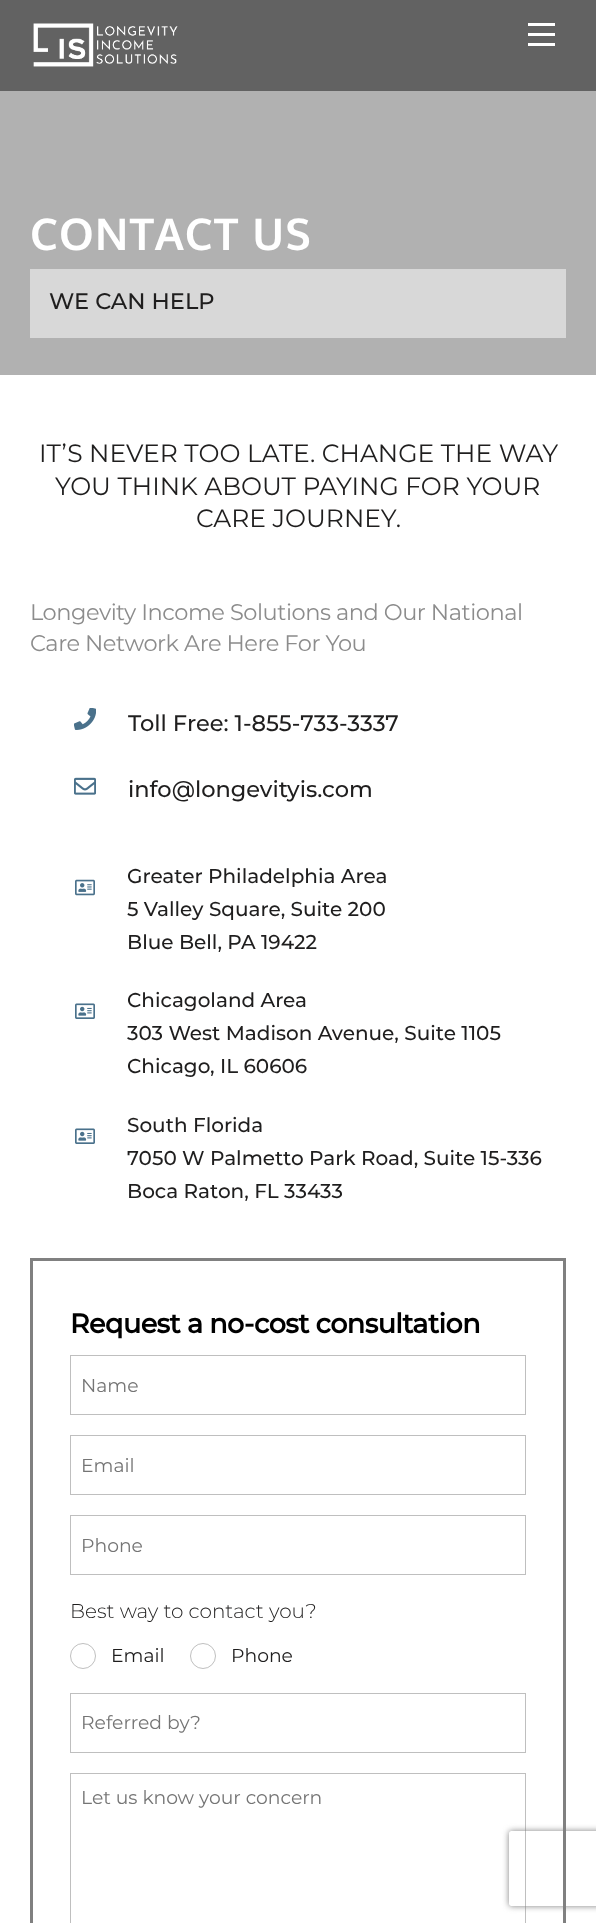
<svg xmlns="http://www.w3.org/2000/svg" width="596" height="1923">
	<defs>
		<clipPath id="clip1"><path d="M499 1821H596V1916H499ZM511.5 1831H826.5C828 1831 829 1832 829 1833.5V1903.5C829 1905 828 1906 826.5 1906H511.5C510 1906 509 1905 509 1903.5V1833.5C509 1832 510 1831 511.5 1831Z" clip-rule="evenodd" /></clipPath>
	</defs>
	<rect width="100%" height="100%" fill="#FFFFFF" />
	<rect x="0" y="0" width="596" height="91" fill="#626262" />
	<image x="33" y="23" width="145" height="44" href="assets/img1.png" />
	<rect x="528" y="43" width="27" height="3" fill="#FFFFFF" />
	<rect x="528" y="23" width="27" height="3" fill="#FFFFFF" />
	<rect x="528" y="33" width="27" height="3" fill="#FFFFFF" />
	<rect x="0" y="91" width="596" height="284" fill="#B1B1B1" />
	<text x="30" y="250" font-family="Oxygen" font-size="43.75" font-weight="700" letter-spacing="1.25" fill="#FFFFFF">CONTACT US</text>
	<rect x="30" y="269" width="536" height="69" fill="#D8D8D8" />
	<text x="49" y="309" font-family="Montserrat" font-size="22.5" font-weight="500" fill="#1F1E1E">WE CAN HELP</text>
	<g font-family="Montserrat" font-size="25" fill="#1F1E1E">
		<text x="39" y="462">IT’S NEVER TOO LATE. CHANGE THE WAY</text>
		<text x="55" y="495">YOU THINK ABOUT PAYING FOR YOUR</text>
		<text x="196" y="527">CARE JOURNEY.</text>
	</g>
	<g font-family="Montserrat" font-size="22.5" letter-spacing="-0.45" fill="#8C8C8C">
		<text x="30" y="620">Longevity Income Solutions and Our National</text>
		<text x="30" y="651">Care Network Are Here For You</text>
	</g>
	<image x="74" y="708" width="22" height="22" href="assets/img2.png" />
	<text x="128" y="731" font-family="Montserrat" font-size="22.5" font-weight="500" fill="#1F1E1E">Toll Free: 1-855-733-3337</text>
	<image x="74" y="777" width="22" height="18" href="assets/img3.png" />
	<text x="128" y="797" font-family="Montserrat" font-size="22.5" font-weight="500" fill="#1F1E1E">info@longevityis.com</text>
	<image x="75" y="879" width="20" height="17" href="assets/img4.png" />
	<g font-family="Montserrat" font-size="20" font-weight="500" fill="#1F1E1E">
		<text x="127" y="883">Greater Philadelphia Area</text>
		<text x="127" y="916">5 Valley Square, Suite 200</text>
		<text x="127" y="949">Blue Bell, PA 19422</text>
	</g>
	<image x="75" y="1003" width="20" height="16" href="assets/img5.png" />
	<g font-family="Montserrat" font-size="20" font-weight="500" fill="#1F1E1E">
		<text x="127" y="1007">Chicagoland Area</text>
		<text x="127" y="1040">303 West Madison Avenue, Suite 1105</text>
		<text x="127" y="1073">Chicago, IL 60606</text>
	</g>
	<image x="75" y="1128" width="20" height="16" href="assets/img5.png" />
	<g font-family="Montserrat" font-size="20" font-weight="500" fill="#1F1E1E">
		<text x="127" y="1132">South Florida</text>
		<text x="127" y="1165">7050 W Palmetto Park Road, Suite 15-336</text>
		<text x="127" y="1198">Boca Raton, FL 33433</text>
	</g>
	<rect x="31.5" y="1259.5" width="533" height="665" fill="none" stroke="#808080" stroke-width="3" />
	<text x="70" y="1333" font-family="Montserrat" font-size="27" font-weight="700" letter-spacing="-0.55" fill="#000000">Request a no-cost consultation</text>
	<rect x="70.5" y="1355.5" width="455" height="59" fill="none" stroke="#BFBFBF" />
	<text x="81" y="1392" font-family="Montserrat" font-size="18.75" fill="#757575">Name</text>
	<rect x="70.5" y="1435.5" width="455" height="59" fill="none" stroke="#BFBFBF" />
	<text x="81" y="1472" font-family="Montserrat" font-size="18.75" fill="#757575">Email</text>
	<rect x="70.5" y="1515.5" width="455" height="59" fill="none" stroke="#BFBFBF" />
	<text x="81" y="1552" font-family="Montserrat" font-size="18.75" fill="#757575">Phone</text>
	<text x="70" y="1618" font-family="Montserrat" font-size="20" font-weight="300" fill="#1F1E1E">Best way to contact you?</text>
	<circle cx="83" cy="1656" r="12.5" fill="none" stroke="#BFBFBF" />
	<text x="111" y="1662" font-family="Montserrat" font-size="18.75" fill="#1F1E1E">Email</text>
	<circle cx="203" cy="1656" r="12.5" fill="none" stroke="#BFBFBF" />
	<text x="231" y="1662" font-family="Montserrat" font-size="18.75" fill="#1F1E1E">Phone</text>
	<rect x="70.5" y="1693.5" width="455" height="59" fill="none" stroke="#BFBFBF" />
	<text x="81" y="1729" font-family="Montserrat" font-size="18.75" fill="#757575">Referred by?</text>
	<rect x="70.5" y="1773.5" width="455" height="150" fill="none" stroke="#BFBFBF" />
	<text x="81" y="1804" font-family="Montserrat" font-size="18.75" fill="#757575">Let us know your concern</text>
	<g clip-path="url(#clip1)">
		<rect x="509" y="1831" width="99" height="75" rx="2.5" fill="#808080" filter="blur(3px)" />
	</g>
</svg>
